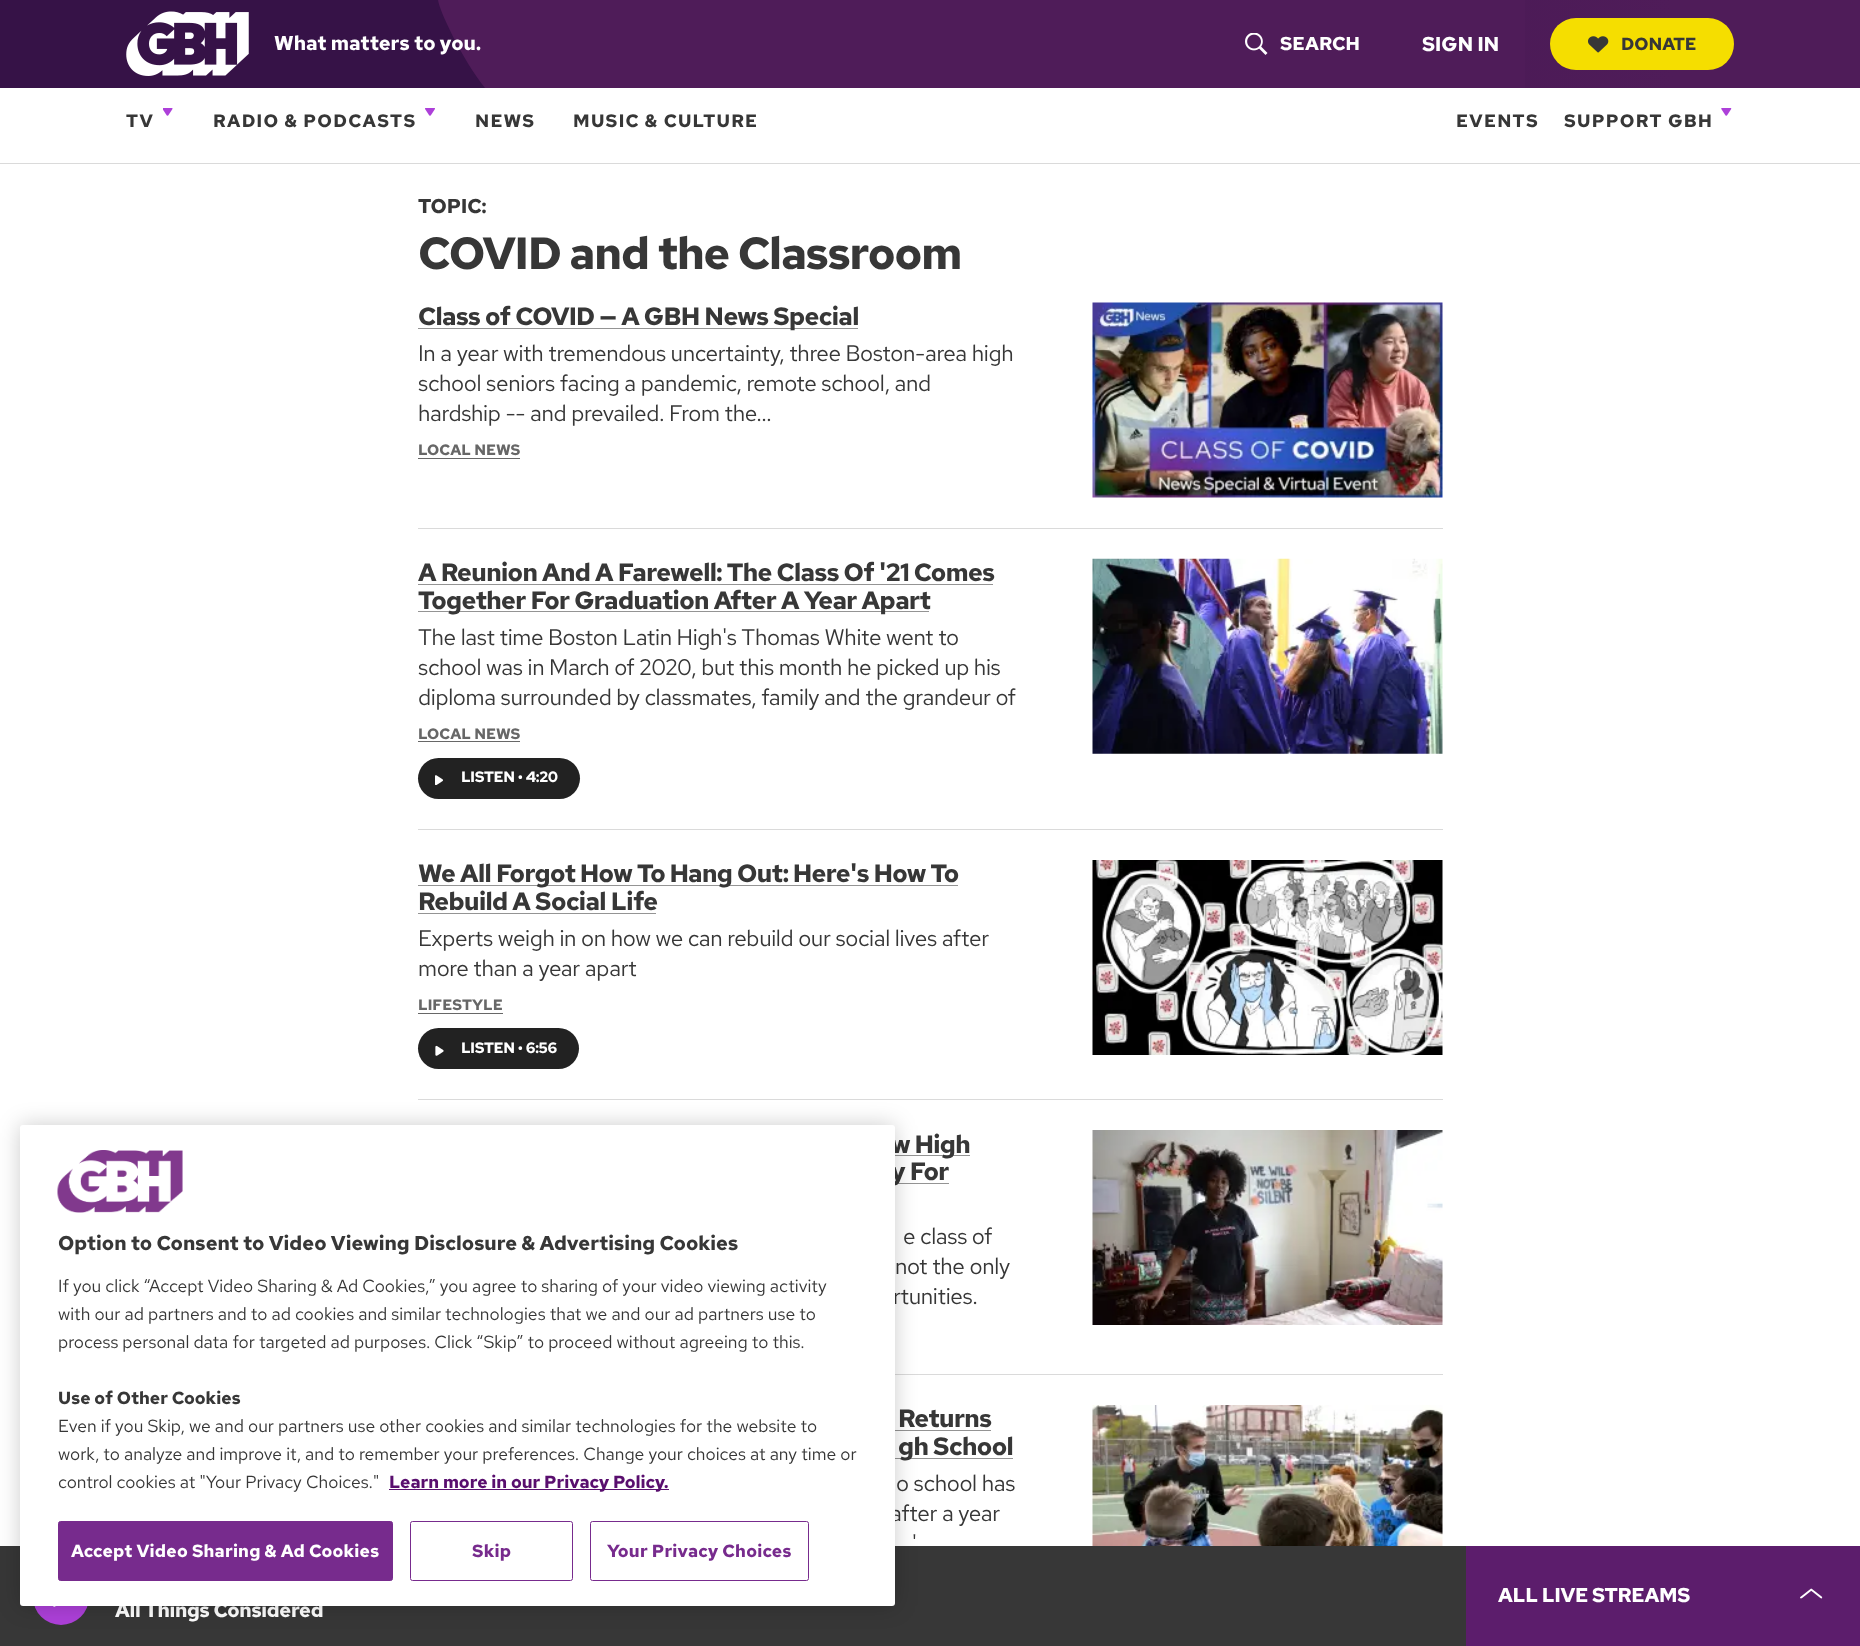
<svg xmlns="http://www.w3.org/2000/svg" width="1860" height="1646">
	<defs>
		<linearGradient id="g1" gradientUnits="userSpaceOnUse" x1="0" y1="82" x2="1860" y2="82"><stop offset="0.1" stop-color="#361247" /><stop offset="0.9" stop-color="#4F1C59" /></linearGradient>
		<clipPath id="clip1"><rect x="76" y="0" width="410" height="88" /></clipPath>
	</defs>
	<rect width="100%" height="100%" fill="#FFFFFF" />
	<rect x="0" y="0" width="1860" height="88" fill="url(#g1)" />
	<rect x="438" y="0" width="1087" height="88" fill="#4F1C59" />
	<g clip-path="url(#clip1)">
		<path d="M-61 0H438C439 10 462 59 485 88H-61Z" fill="#361247" />
	</g>
	<image x="126" y="11" width="123" height="65" href="assets/img1.png" />
	<text x="274" y="50" font-family="Red Hat Text" font-size="20" font-weight="700" fill="#FFFFFF">What matters to you.</text>
	<image x="1245" y="33" width="23" height="22" href="assets/img2.png" />
	<text x="1280" y="50" font-family="Red Hat Text" font-size="18.75" font-weight="700" fill="#FFFFFF">SEARCH</text>
	<text x="1422" y="51" font-family="Red Hat Text" font-size="20" font-weight="700" fill="#FFFFFF">SIGN IN</text>
	<rect x="1550" y="18" width="184" height="52" rx="26" fill="#F5DE00" />
	<image x="1588" y="36" width="21" height="17" href="assets/img3.png" />
	<text x="1621" y="50" font-family="Red Hat Text" font-size="17.5" font-weight="700" fill="#373737">DONATE</text>
	<rect x="0" y="163" width="1860" height="1" fill="#DADADA" />
	<image x="163" y="108" width="10" height="8" href="assets/img4.png" />
	<text x="126" y="127" font-family="Red Hat Text" font-size="18" font-weight="700" letter-spacing="1.25" fill="#373737">TV</text>
	<image x="425" y="108" width="10" height="8" href="assets/img5.png" />
	<g font-family="Red Hat Text" font-size="18" font-weight="700" letter-spacing="1.25" fill="#373737">
		<text x="213" y="127">RADIO &amp; PODCASTS</text>
		<text x="475" y="127">NEWS</text>
		<text x="573" y="127">MUSIC &amp; CULTURE</text>
		<text x="1456" y="127">EVENTS</text>
	</g>
	<image x="1721" y="108" width="11" height="8" href="assets/img6.png" />
	<text x="1564" y="127" font-family="Red Hat Text" font-size="18" font-weight="700" letter-spacing="1.25" fill="#373737">SUPPORT GBH</text>
	<rect x="0" y="1546" width="1466" height="100" fill="#373737" />
	<rect x="1466" y="1546" width="394" height="100" fill="#5C1D6C" />
	<text x="1498" y="1602" font-family="Red Hat Text" font-size="20" font-weight="700" letter-spacing="-0.3" fill="#FFFFFF">ALL LIVE STREAMS</text>
	<image x="1800" y="1588" width="23" height="11" href="assets/img7.png" />
	<circle cx="61" cy="1597" r="28" fill="#AD40D9" />
	<image x="53" y="1606" width="3" height="1" href="assets/img8.png" />
	<text x="115" y="1617" font-family="Red Hat Text" font-size="20" font-weight="700" letter-spacing="-0.3" fill="#FFFFFF">All Things Considered</text>
	<text x="418" y="213" font-family="Red Hat Text" font-size="20" font-weight="700" fill="#373737">TOPIC:</text>
	<text x="418" y="269" font-family="Red Hat Text" font-size="45" font-weight="700" letter-spacing="-1.1" fill="#373737">COVID and the Classroom</text>
	<rect x="418" y="528" width="1025" height="1" fill="#DADADA" />
	<rect x="418" y="328" width="440" height="1" fill="#949494" />
	<text x="418" y="325" font-family="Red Hat Text" font-size="25" font-weight="700" letter-spacing="-0.6" fill="#373737">Class of COVID — A GBH News Special</text>
	<g font-family="Red Hat Text" font-size="22.5" letter-spacing="-0.35" fill="#373737">
		<text x="418" y="361">In a year with tremendous uncertainty, three Boston-area high</text>
		<text x="418" y="391">school seniors facing a pandemic, remote school, and</text>
		<text x="418" y="421">hardship -- and prevailed. From the…</text>
	</g>
	<text x="418" y="455" font-family="Red Hat Text" font-size="15" font-weight="700" fill="#676767">LOCAL NEWS</text>
	<rect x="418" y="458" width="102" height="1" fill="#676767" />
	<image x="1092" y="302" width="351" height="196" href="assets/img9.png" />
	<rect x="418" y="829" width="1025" height="1" fill="#DADADA" />
	<text x="418" y="581" font-family="Red Hat Text" font-size="25" font-weight="700" letter-spacing="-0.6" fill="#373737">A Reunion And A Farewell: The Class Of '21 Comes</text>
	<rect x="418" y="584" width="575" height="1" fill="#949494" />
	<rect x="418" y="611" width="511" height="1" fill="#949494" />
	<text x="418" y="609" font-family="Red Hat Text" font-size="25" font-weight="700" letter-spacing="-0.6" fill="#373737">Together For Graduation After A Year Apart</text>
	<g font-family="Red Hat Text" font-size="22.5" letter-spacing="-0.35" fill="#373737">
		<text x="418" y="645">The last time Boston Latin High's Thomas White went to</text>
		<text x="418" y="675">school was in March of 2020, but this month he picked up his</text>
		<text x="418" y="705">diploma surrounded by classmates, family and the grandeur of</text>
	</g>
	<text x="418" y="739" font-family="Red Hat Text" font-size="15" font-weight="700" fill="#676767">LOCAL NEWS</text>
	<rect x="418" y="741" width="102" height="1" fill="#676767" />
	<rect x="418" y="758" width="162" height="41" rx="20.5" fill="#222222" />
	<image x="435" y="775" width="8" height="10" href="assets/img10.png" />
	<text x="461" y="782" font-family="Red Hat Text" font-size="15" font-weight="700" letter-spacing="-0.35" fill="#FFFFFF">LISTEN • 4:20</text>
	<image x="1092" y="558" width="351" height="196" href="assets/img11.png" />
	<rect x="418" y="1099" width="1025" height="1" fill="#DADADA" />
	<rect x="418" y="885" width="540" height="1" fill="#949494" />
	<g font-family="Red Hat Text" font-size="25" font-weight="700" letter-spacing="-0.6" fill="#373737">
		<text x="418" y="882">We All Forgot How To Hang Out: Here's How To</text>
		<text x="418" y="910">Rebuild A Social Life</text>
	</g>
	<rect x="418" y="913" width="238" height="1" fill="#949494" />
	<g font-family="Red Hat Text" font-size="22.5" letter-spacing="-0.35" fill="#373737">
		<text x="418" y="946">Experts weigh in on how we can rebuild our social lives after</text>
		<text x="418" y="976">more than a year apart</text>
	</g>
	<text x="418" y="1010" font-family="Red Hat Text" font-size="15" font-weight="700" fill="#676767">LIFESTYLE</text>
	<rect x="418" y="1013" width="85" height="1" fill="#676767" />
	<rect x="418" y="1028" width="161" height="41" rx="20.5" fill="#222222" />
	<image x="435" y="1045" width="9" height="11" href="assets/img12.png" />
	<text x="461" y="1053" font-family="Red Hat Text" font-size="15" font-weight="700" letter-spacing="-0.35" fill="#FFFFFF">LISTEN • 6:56</text>
	<image x="1092" y="860" width="351" height="195" href="assets/img13.png" />
	<rect x="895" y="1374" width="548" height="1" fill="#DADADA" />
	<rect x="895" y="1155" width="75" height="1" fill="#949494" />
	<text x="891" y="1153" font-family="Red Hat Text" font-size="25" font-weight="700" letter-spacing="-0.6" fill="#373737">w High</text>
	<rect x="895" y="1183" width="54" height="1" fill="#949494" />
	<text x="891" y="1180" font-family="Red Hat Text" font-size="25" font-weight="700" letter-spacing="-0.6" fill="#373737">y For</text>
	<g font-family="Red Hat Text" font-size="22.5" letter-spacing="-0.35" fill="#373737">
		<text x="903" y="1244">e class of</text>
		<text x="895" y="1274">not the only</text>
		<text x="893" y="1304">rtunities.</text>
	</g>
	<image x="1092" y="1130" width="351" height="195" href="assets/img14.png" />
	<text x="898" y="1427" font-family="Red Hat Text" font-size="25" font-weight="700" letter-spacing="-0.6" fill="#373737">Returns</text>
	<rect x="895" y="1430" width="96" height="1" fill="#949494" />
	<rect x="895" y="1458" width="118" height="1" fill="#949494" />
	<text x="898" y="1455" font-family="Red Hat Text" font-size="25" font-weight="700" letter-spacing="-0.6" fill="#373737">gh School</text>
	<g font-family="Red Hat Text" font-size="22.5" letter-spacing="-0.35" fill="#373737">
		<text x="896" y="1491">o school has</text>
		<text x="890" y="1521">after a year</text>
		<text x="912" y="1551">'</text>
	</g>
	<image x="1092" y="1405" width="351" height="141" href="assets/img15.png" />
	<rect x="20" y="1125" width="875" height="481" rx="3" fill="#000000" fill-opacity="0.2" filter="blur(11px)" />
	<rect x="20" y="1125" width="875" height="481" rx="3" fill="#FFFFFF" />
	<image x="57" y="1150" width="126" height="63" href="assets/img16.png" />
	<text x="58" y="1250" font-family="Red Hat Text" font-size="20" font-weight="700" fill="#373737">Option to Consent to Video Viewing Disclosure &amp; Advertising Cookies</text>
	<g font-family="Red Hat Text" font-size="17.5" fill="#373737">
		<text x="58" y="1292">If you click “Accept Video Sharing &amp; Ad Cookies,” you agree to sharing of your video viewing activity</text>
		<text x="58" y="1320">with our ad partners and to ad cookies and similar technologies that we and our ad partners use to</text>
		<text x="58" y="1348">process personal data for targeted ad purposes. Click “Skip” to proceed without agreeing to this.</text>
	</g>
	<text x="58" y="1404" font-family="Red Hat Text" font-size="17.5" font-weight="700" fill="#373737">Use of Other Cookies</text>
	<g font-family="Red Hat Text" font-size="17.5" fill="#373737">
		<text x="58" y="1432">Even if you Skip, we and our partners use other cookies and similar technologies for the website to</text>
		<text x="58" y="1460">work, to analyze and improve it, and to remember your preferences. Change your choices at any time or</text>
		<text x="58" y="1488">control cookies at "Your Privacy Choices."</text>
	</g>
	<rect x="389" y="1489" width="280" height="1" fill="#590E6E" />
	<text x="389" y="1488" font-family="Red Hat Text" font-size="17.5" font-weight="700" fill="#590E6E">Learn more in our Privacy Policy.</text>
	<rect x="58.5" y="1521.5" width="334" height="59" rx="2" fill="#772B8D" stroke="#772B8D" />
	<text x="71" y="1557" font-family="Red Hat Text" font-size="17.5" font-weight="700" letter-spacing="0.2" fill="#FFFFFF">Accept Video Sharing &amp; Ad Cookies</text>
	<rect x="410.5" y="1521.5" width="162" height="59" rx="2" fill="none" stroke="#772B8D" />
	<text x="472" y="1557" font-family="Red Hat Text" font-size="17.5" font-weight="700" letter-spacing="0.2" fill="#772B8D">Skip</text>
	<rect x="590.5" y="1521.5" width="218" height="59" rx="2" fill="none" stroke="#772B8D" />
	<text x="607" y="1557" font-family="Red Hat Text" font-size="17.5" font-weight="700" letter-spacing="0.2" fill="#772B8D">Your Privacy Choices</text>
</svg>
